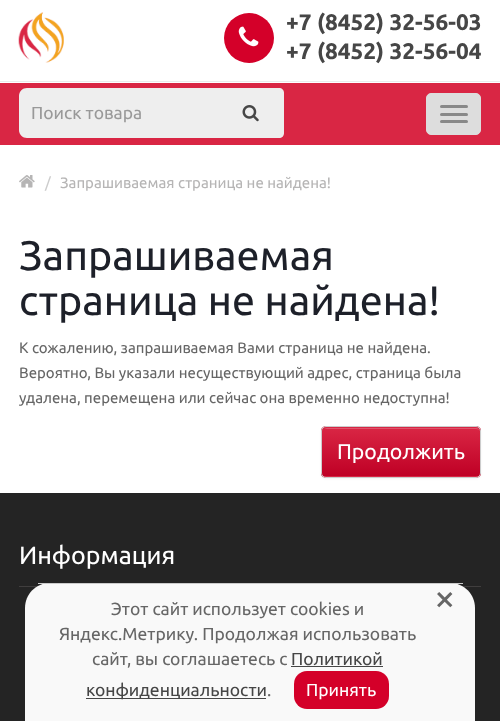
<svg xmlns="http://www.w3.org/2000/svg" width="500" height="721">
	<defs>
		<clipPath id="clip1"><rect x="321" y="426" width="160" height="52" rx="5" /></clipPath>
		<linearGradient id="g1" gradientUnits="userSpaceOnUse" x1="401" y1="428" x2="401" y2="476"><stop offset="0" stop-color="#D92644" /><stop offset="1" stop-color="#BF0025" /></linearGradient>
	</defs>
	<rect width="100%" height="100%" fill="#FFFFFF" />
	<rect x="0" y="81" width="500" height="1" fill="#EAEBEC" />
	<image x="18" y="12" width="46" height="51" href="assets/img1.png" />
	<circle cx="249" cy="38" r="25" fill="#D40029" />
	<image x="238" y="26" width="21" height="21" href="assets/img2.png" />
	<g font-family="Ubuntu" font-size="22.5" font-weight="700" fill="#464646">
		<text x="286" y="30">+7 (8452) 32-56-03</text>
		<text x="286" y="59">+7 (8452) 32-56-04</text>
	</g>
	<rect x="0" y="83" width="500" height="62" fill="#D92644" />
	<path d="M27 88H219V138H27C22.5 138 19 134.5 19 130V96C19 91.5 22.5 88 27 88Z" fill="#EEEEEE" />
	<text x="31" y="119" font-family="Ubuntu" font-size="17.5" fill="#999999">Поиск товара</text>
	<path d="M218 88H279C282 88 284 90 284 93V133C284 136 282 138 279 138H218Z" fill="#EEEEEE" />
	<image x="242" y="105" width="17" height="17" href="assets/img3.png" />
	<rect x="426.5" y="93.5" width="54" height="41" rx="4.5" fill="#DDDDDD" stroke="#DDDDDD" />
	<rect x="440" y="105" width="28" height="3" rx="1.5" fill="#888888" />
	<rect x="440" y="113" width="28" height="3" rx="1.5" fill="#888888" />
	<rect x="440" y="120" width="28" height="3" rx="1.5" fill="#888888" />
	<image x="19" y="175" width="16" height="13" href="assets/img4.png" />
	<text x="45" y="188" font-family="Ubuntu" font-size="15" fill="#CCCCCC">/</text>
	<text x="60" y="188" font-family="Ubuntu" font-size="15" fill="#B6B5B5">Запрашиваемая страница не найдена!</text>
	<g font-family="Ubuntu" font-size="41.25" fill="#1D2029">
		<text x="19" y="270">Запрашиваемая</text>
		<text x="19" y="315">страница не найдена!</text>
	</g>
	<g font-family="Ubuntu" font-size="15" fill="#666666">
		<text x="19" y="353">К сожалению, запрашиваемая Вами страница не найдена.</text>
		<text x="19" y="378">Вероятно, Вы указали несуществующий адрес, страница была</text>
		<text x="19" y="403">удалена, перемещена или сейчас она временно недоступна!</text>
	</g>
	<rect x="321" y="428" width="160" height="51" rx="5" fill="#000000" fill-opacity="0.05" filter="blur(1px)" />
	<rect x="321" y="426" width="160" height="52" rx="5" fill="#D72644" />
	<g clip-path="url(#clip1)">
		<rect x="321" y="428" width="160" height="48" fill="url(#g1)" />
	</g>
	<path d="M326 429H476C478 429 480 430 480 432C480 430 478 428 476 428H327L324 429Z" fill="#E15169" />
	<rect x="321.5" y="426.5" width="159" height="51" rx="4.5" fill="none" stroke="#CCCCCC" />
	<text x="337" y="459" font-family="Ubuntu" font-size="21.25" fill="#FFFFFF">Продолжить</text>
	<rect x="0" y="493" width="500" height="228" fill="#242424" />
	<rect x="19" y="586" width="462" height="1" fill="#403E3E" />
	<text x="19" y="564" font-family="Ubuntu" font-size="25" fill="#FFFFFF">Информация</text>
	<path d="M50 583H450C464 583 475 594 475 608V721H25V608C25 594 36 583 50 583Z" fill="#F9F9F9" />
	<rect x="38" y="583" width="425" height="1" fill="#CCCCCC" />
	<text x="111" y="615" font-family="Ubuntu" font-size="17.5" fill="#666666">Этот сайт использует cookies и</text>
	<text x="434" y="611" font-family="Ubuntu" font-size="38" fill="#666666">×</text>
	<g font-family="Ubuntu" font-size="17.5" fill="#666666">
		<text x="59" y="640">Яндекс.Метрику. Продолжая использовать</text>
		<text x="92" y="665">сайт, вы соглашаетесь с</text>
	</g>
	<text x="291" y="665" font-family="Ubuntu" font-size="17.5" fill="#464646">Политикой</text>
	<rect x="291" y="666" width="92" height="1" fill="#464646" />
	<rect x="86" y="698" width="180" height="1" fill="#464646" />
	<text x="86" y="696" font-family="Ubuntu" font-size="17.5" fill="#464646">конфиденциальности</text>
	<text x="267" y="696" font-family="Ubuntu" font-size="17.5" fill="#666666">.</text>
	<rect x="294" y="671" width="95" height="38" rx="13" fill="#D40029" />
	<text x="306" y="696" font-family="Ubuntu" font-size="17.5" fill="#FFFFFF">Принять</text>
</svg>
